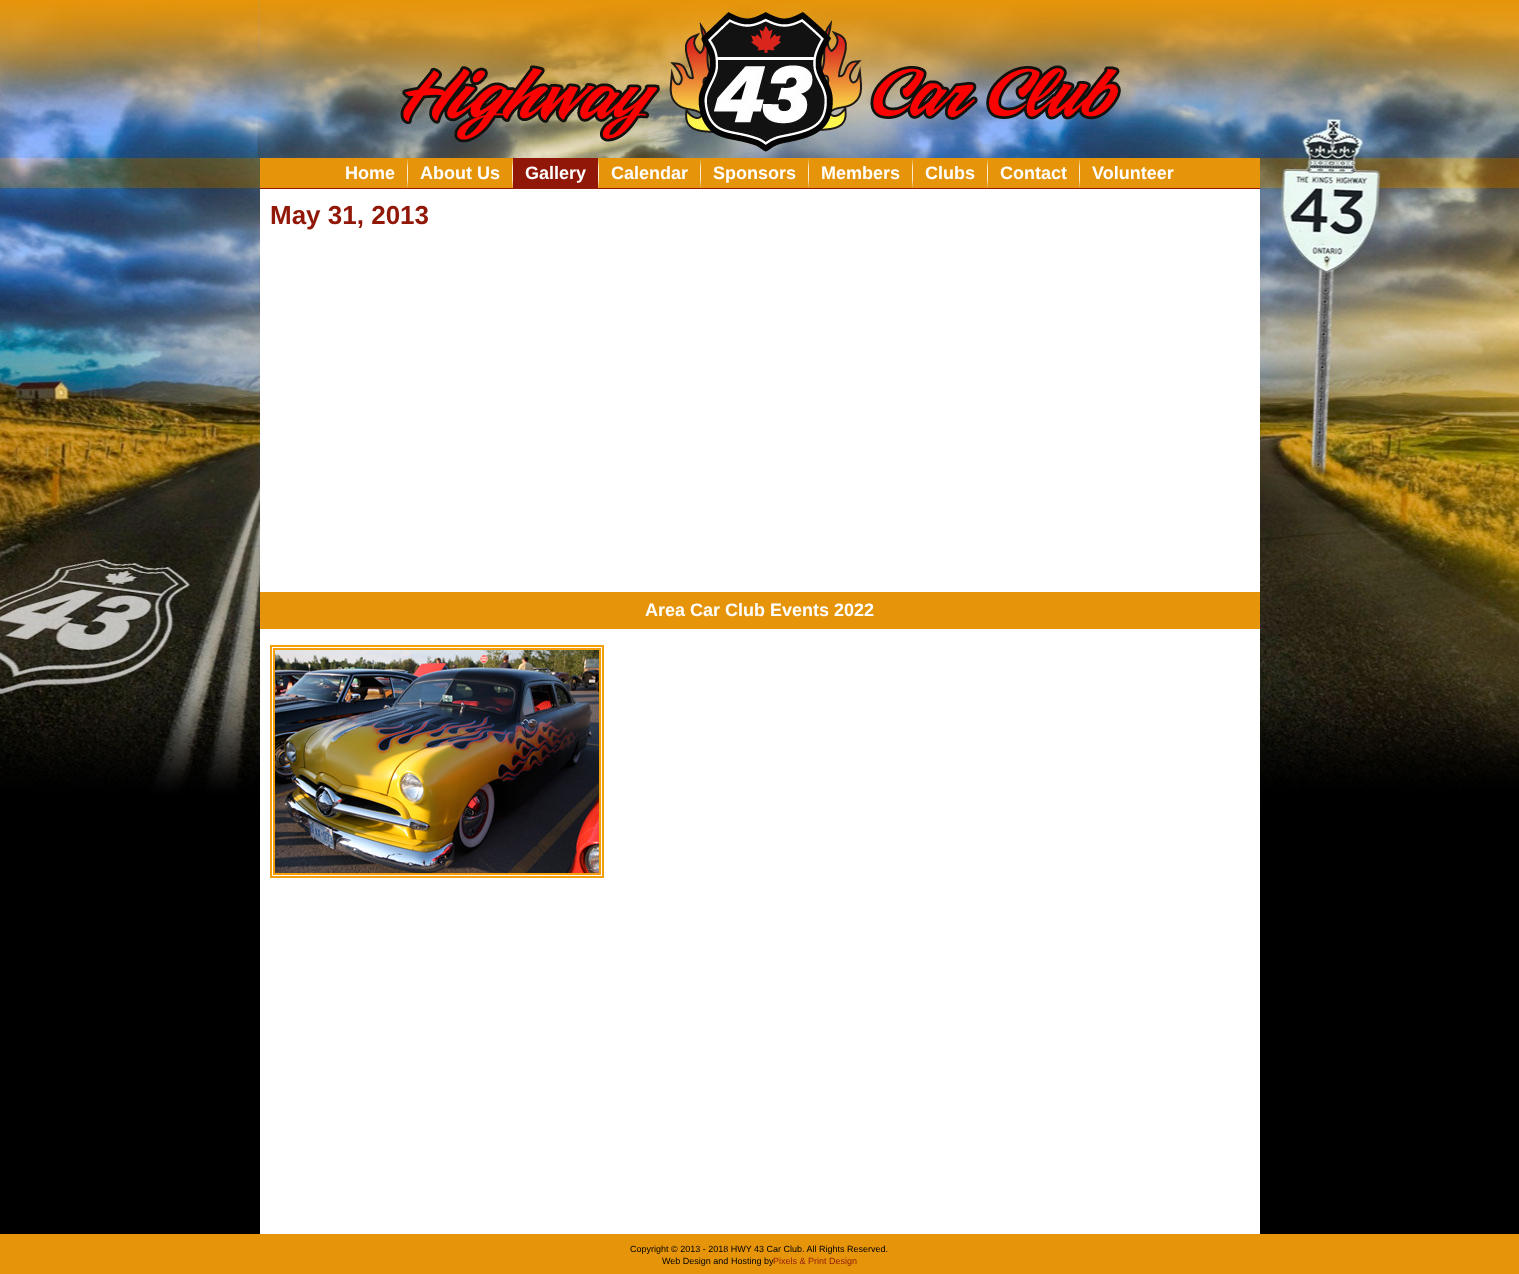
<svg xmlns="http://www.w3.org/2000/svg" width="1519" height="1274">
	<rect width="100%" height="100%" fill="#000000" />
	<image x="0" y="0" width="1519" height="812" href="assets/img1.png" />
	<image x="260" y="0" width="1000" height="158" href="assets/img2.png" />
	<rect x="260" y="189" width="1000" height="1045" fill="#FFFFFF" />
	<rect x="260" y="158" width="1000" height="30" fill="#E6950A" />
	<rect x="260" y="188" width="1000" height="1" fill="#911808" />
	<text x="345" y="179" font-family="Liberation Sans" font-size="18" font-weight="700" fill="#FFFFFF">Home</text>
	<image x="407" y="159" width="1" height="29" href="assets/img3.png" />
	<text x="420" y="179" font-family="Liberation Sans" font-size="18" font-weight="700" fill="#FFFFFF">About Us</text>
	<image x="512" y="159" width="1" height="29" href="assets/img3.png" />
	<rect x="513" y="158" width="85" height="30" fill="#911808" />
	<text x="525" y="179" font-family="Liberation Sans" font-size="18" font-weight="700" fill="#FFFFFF">Gallery</text>
	<image x="598" y="159" width="1" height="29" href="assets/img3.png" />
	<text x="611" y="179" font-family="Liberation Sans" font-size="18" font-weight="700" fill="#FFFFFF">Calendar</text>
	<image x="700" y="159" width="1" height="29" href="assets/img3.png" />
	<text x="713" y="179" font-family="Liberation Sans" font-size="18" font-weight="700" fill="#FFFFFF">Sponsors</text>
	<image x="808" y="159" width="1" height="29" href="assets/img3.png" />
	<text x="821" y="179" font-family="Liberation Sans" font-size="18" font-weight="700" fill="#FFFFFF">Members</text>
	<image x="912" y="159" width="1" height="29" href="assets/img3.png" />
	<text x="925" y="179" font-family="Liberation Sans" font-size="18" font-weight="700" fill="#FFFFFF">Clubs</text>
	<image x="987" y="159" width="1" height="29" href="assets/img3.png" />
	<text x="1000" y="179" font-family="Liberation Sans" font-size="18" font-weight="700" fill="#FFFFFF">Contact</text>
	<image x="1079" y="159" width="1" height="29" href="assets/img3.png" />
	<text x="1092" y="179" font-family="Liberation Sans" font-size="18" font-weight="700" fill="#FFFFFF">Volunteer</text>
	<text x="270" y="224" font-family="Liberation Sans" font-size="26" font-weight="700" fill="#911808">May 31, 2013</text>
	<rect x="260" y="592" width="1000" height="37" fill="#E6950A" />
	<text x="645" y="616" font-family="Liberation Sans" font-size="18" font-weight="700" fill="#FFFFFF">Area Car Club Events 2022</text>
	<rect x="271" y="646" width="332" height="231" fill="none" stroke="#F59F0A" stroke-width="2" />
	<rect x="274" y="649" width="326" height="225" fill="none" stroke="#F59F0A" stroke-width="2" />
	<image x="275" y="650" width="324" height="223" href="assets/img4.png" />
	<rect x="0" y="1234" width="1519" height="40" fill="#E6950A" />
	<g font-family="Liberation Sans" font-size="9" fill="#000000">
		<text x="630" y="1252">Copyright © 2013 - 2018 HWY 43 Car Club. All Rights Reserved.</text>
		<text x="662" y="1264">Web Design and Hosting by</text>
	</g>
	<text x="773" y="1264" font-family="Liberation Sans" font-size="9" fill="#911808">Pixels &amp; Print Design</text>
</svg>
